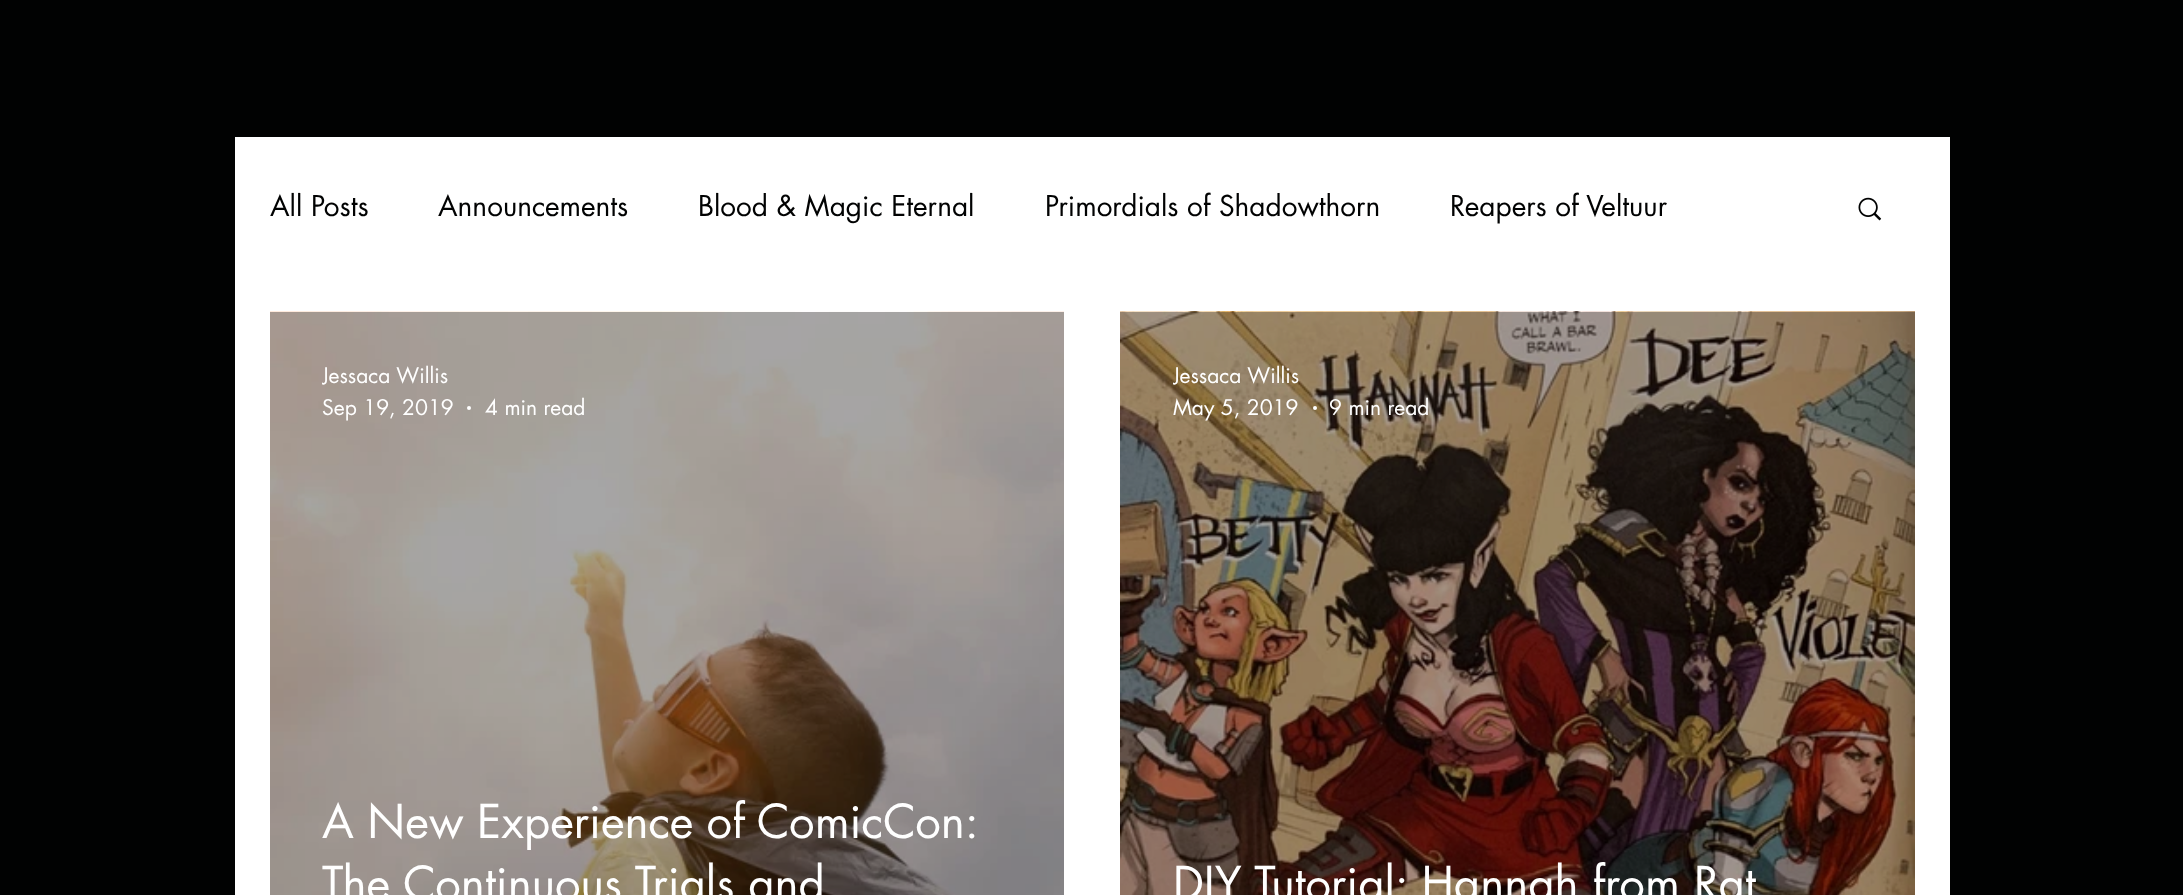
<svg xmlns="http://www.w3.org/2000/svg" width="2183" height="895">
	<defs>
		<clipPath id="clip1"><rect x="322" y="361" width="126" height="29" /></clipPath>
		<clipPath id="clip2"><rect x="1173" y="361" width="126" height="29" /></clipPath>
	</defs>
	<rect width="100%" height="100%" fill="#010202" />
	<rect x="235" y="137" width="1715" height="758" fill="#FFFFFF" />
	<g font-family="futura" font-size="28" fill="#010202">
		<text x="270" y="216">All Posts</text>
		<text x="438" y="216">Announcements</text>
		<text x="698" y="216">Blood &amp; Magic Eternal</text>
		<text x="1045" y="216">Primordials of Shadowthorn</text>
		<text x="1450" y="216">Reapers of Veltuur</text>
	</g>
	<image x="1858" y="197" width="24" height="24" href="assets/img1.png" />
	<image x="270" y="311" width="794" height="584" href="assets/img2.png" />
	<g clip-path="url(#clip1)">
		<text x="322" y="383" font-family="futura" font-size="21" fill="#FFFFFF">Jessaca Willis</text>
	</g>
	<text x="322" y="415" font-family="futura" font-size="21" fill="#FFFFFF">Sep 19, 2019</text>
	<circle cx="469" cy="408" r="2" fill="#FFFFFF" />
	<text x="485" y="415" font-family="futura" font-size="21" fill="#FFFFFF">4 min read</text>
	<g font-family="futura" font-size="45.5" fill="#FFFFFF">
		<text x="322" y="838" word-spacing="-0.5">A New Experience of ComicCon:</text>
		<text x="322" y="900">The Continuous Trials and</text>
	</g>
	<image x="1120" y="311" width="795" height="584" href="assets/img3.png" />
	<g clip-path="url(#clip2)">
		<text x="1173" y="383" font-family="futura" font-size="21" fill="#FFFFFF">Jessaca Willis</text>
	</g>
	<text x="1173" y="415" font-family="futura" font-size="21" fill="#FFFFFF">May 5, 2019</text>
	<circle cx="1315" cy="408" r="2" fill="#FFFFFF" />
	<text x="1329" y="415" font-family="futura" font-size="21" fill="#FFFFFF">9 min read</text>
	<text x="1173" y="900" font-family="futura" font-size="45.5" fill="#FFFFFF">DIY Tutorial: Hannah from Rat</text>
</svg>
